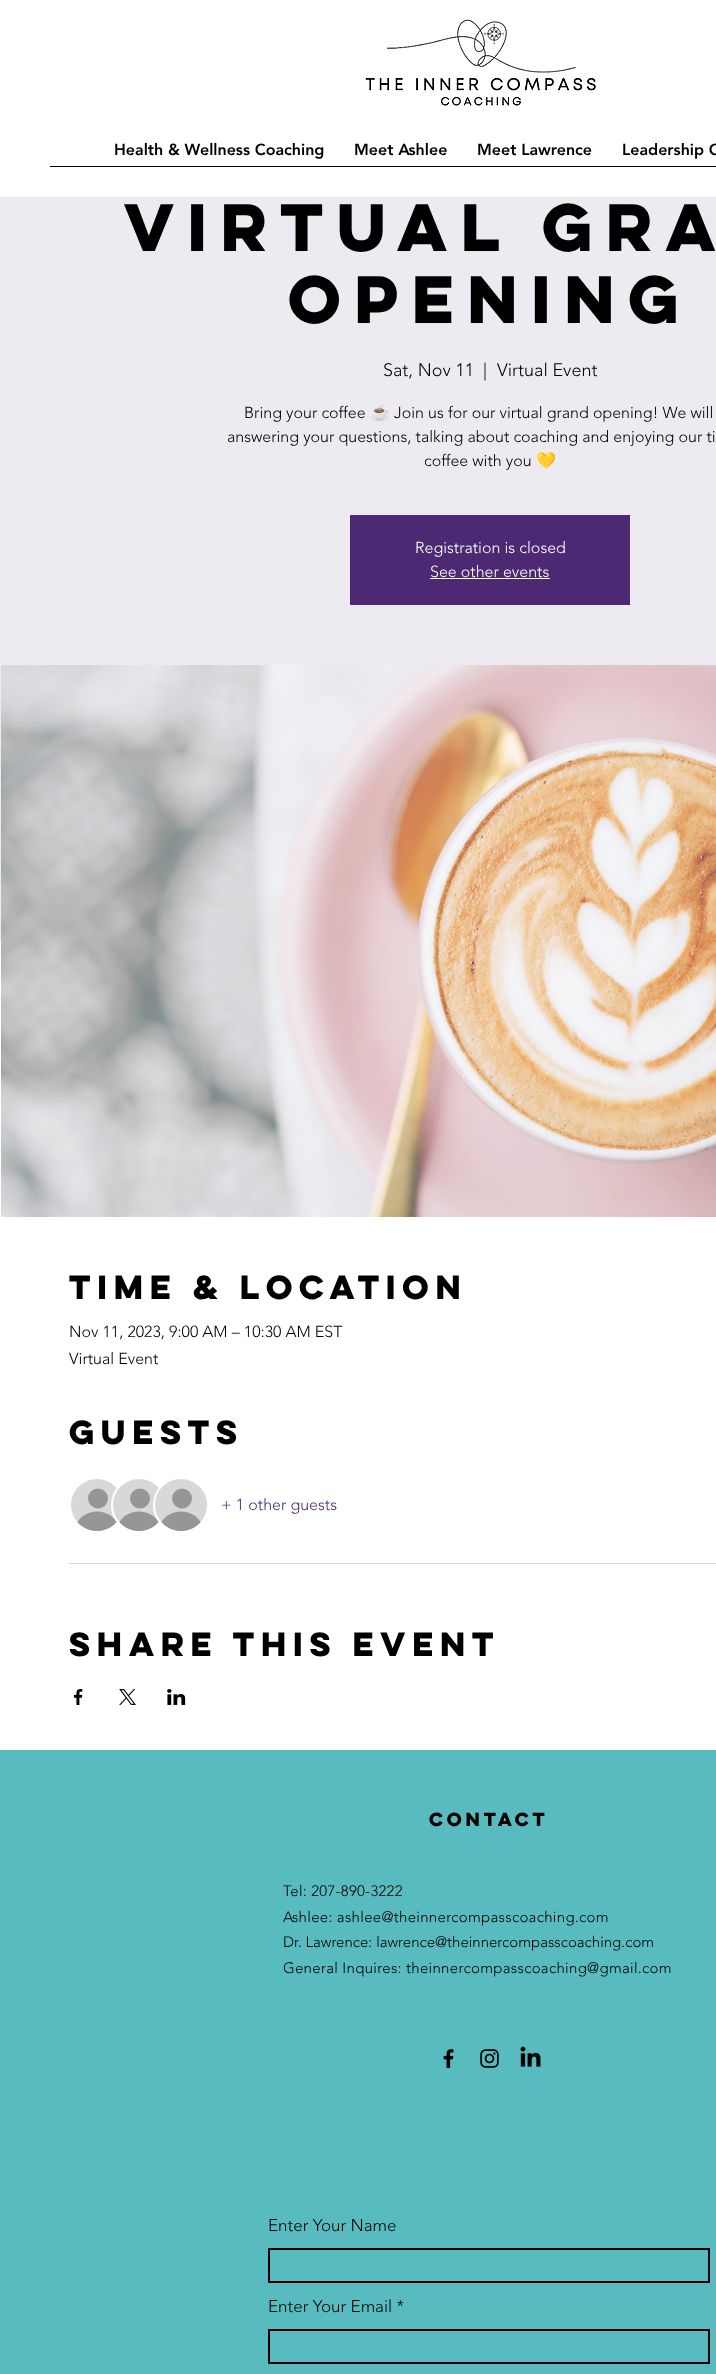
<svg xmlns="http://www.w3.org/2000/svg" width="716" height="2374">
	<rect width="100%" height="100%" fill="#FFFFFF" />
	<image x="365" y="19" width="231" height="87" href="assets/img1.png" />
	<g font-family="'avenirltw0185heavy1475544'" font-size="16" font-weight="900" fill="#000000">
		<text x="114" y="155">Health &amp; Wellness Coaching</text>
		<text x="354" y="155">Meet Ashlee</text>
		<text x="477" y="155">Meet Lawrence</text>
		<text x="622" y="155">Leadership C</text>
	</g>
	<rect x="50" y="166" width="666" height="1" fill="#000000" />
	<rect x="0" y="197" width="716" height="744" fill="#EEEAF2" />
	<g font-family="'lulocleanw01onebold'" font-size="60" font-weight="700" fill="#000000">
		<text x="124" y="251">Virtual Gra</text>
		<text x="288" y="323">Opening</text>
	</g>
	<g font-family="'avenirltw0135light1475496'" font-size="18" font-weight="300" fill="#000000">
		<text x="383" y="376">Sat, Nov 11</text>
		<text x="483" y="376">|</text>
		<text x="497" y="376">Virtual Event</text>
	</g>
	<text x="244" y="418" font-family="'avenirltw0135light1475496'" font-size="16" font-weight="300" fill="#000000">Bring your coffee</text>
	<text x="370" y="418" font-family="Noto Color Emoji" font-size="16" fill="#000000">☕️</text>
	<g font-family="'avenirltw0135light1475496'" font-size="16" font-weight="300" fill="#000000">
		<text x="394" y="418">Join us for our virtual grand opening! We will</text>
		<text x="227" y="442">answering your questions, talking about coaching and enjoying our ti</text>
		<text x="424" y="466">coffee with you</text>
	</g>
	<text x="536" y="466" font-family="Noto Color Emoji" font-size="16" fill="#000000">💛</text>
	<rect x="350" y="515" width="280" height="90" fill="#4C2972" />
	<g font-family="'avenirltw0135light1475496'" font-size="16" font-weight="300" fill="#FFFFFF">
		<text x="415" y="553">Registration is closed</text>
		<text x="430" y="577">See other events</text>
	</g>
	<rect x="430" y="578" width="120" height="1" fill="#FFFFFF" />
	<image x="1" y="665" width="715" height="552" href="assets/img2.png" />
	<text x="69" y="1299" font-family="'lulocleanw01onebold'" font-size="30" font-weight="700" fill="#000000">Time &amp; Location</text>
	<g font-family="'avenirltw0135light1475496'" font-size="16" font-weight="300" fill="#000000">
		<text x="69" y="1337">Nov 11, 2023, 9:00 AM – 10:30 AM EST</text>
		<text x="69" y="1364">Virtual Event</text>
	</g>
	<text x="69" y="1444" font-family="'lulocleanw01onebold'" font-size="30" font-weight="700" fill="#000000">Guests</text>
	<circle cx="97" cy="1505" r="27" fill="#D8D8D8" stroke="#FFFFFF" stroke-width="2" />
	<circle cx="98" cy="1498.5" r="10" fill="#969696" />
	<path d="M116.5 1522C106.5 1534 87.5 1534 77.5 1522C86 1508 108 1508 116.5 1522Z" fill="#969696" />
	<circle cx="139" cy="1505" r="27" fill="#D8D8D8" stroke="#FFFFFF" stroke-width="2" />
	<circle cx="140" cy="1498.5" r="10" fill="#969696" />
	<path d="M158.5 1522C148.5 1534 129.5 1534 119.5 1522C128 1508 150 1508 158.5 1522Z" fill="#969696" />
	<circle cx="181" cy="1505" r="27" fill="#D8D8D8" stroke="#FFFFFF" stroke-width="2" />
	<circle cx="182" cy="1498.5" r="10" fill="#969696" />
	<path d="M200.5 1522C190.5 1534 171.5 1534 161.5 1522C170 1508 192 1508 200.5 1522Z" fill="#969696" />
	<text x="221" y="1510" font-family="'avenirltw0135light1475496'" font-size="16" font-weight="300" fill="#4C2972">+ 1 other guests</text>
	<rect x="69" y="1563" width="647" height="1" fill="#D9D9D9" />
	<text x="69" y="1656" font-family="'lulocleanw01onebold'" font-size="30" font-weight="700" fill="#000000">Share this event</text>
	<image x="74" y="1689" width="9" height="16" href="assets/img3.png" />
	<image x="119" y="1689" width="17" height="16" href="assets/img4.png" />
	<image x="167" y="1689" width="19" height="16" href="assets/img5.png" />
	<rect x="0" y="1750" width="716" height="624" fill="#57BBBF" />
	<text x="429" y="1826" font-family="'lulocleanw01onebold'" font-size="17" font-weight="700" fill="#000000">Contact</text>
	<g font-family="'avenirltw0135light1475496'" font-size="15" font-weight="300" letter-spacing="0.3" fill="#000000">
		<text x="283" y="1896">Tel: 207-890-3222</text>
		<text x="283" y="1922">Ashlee: ashlee@theinnercompasscoaching.com</text>
	</g>
	<text x="283" y="1947" font-family="'avenirltw0135light1475496'" font-size="15" font-weight="300" fill="#000000">Dr. Lawrence: lawrence@theinnercompasscoaching.com</text>
	<text x="283" y="1973" font-family="'avenirltw0135light1475496'" font-size="15" font-weight="300" letter-spacing="0.3" fill="#000000">General Inquires: theinnercompasscoaching@gmail.com</text>
	<image x="443" y="2049" width="11" height="20" href="assets/img6.png" />
	<image x="480" y="2049" width="19" height="19" href="assets/img7.png" />
	<image x="520" y="2046" width="21" height="21" href="assets/img8.png" />
	<text x="268" y="2231" font-family="'avenirltw0135light1475496'" font-size="17" font-weight="300" fill="#000000">Enter Your Name</text>
	<rect x="269" y="2249" width="440" height="33" fill="none" stroke="#000000" stroke-width="2" />
	<text x="268" y="2312" font-family="'avenirltw0135light1475496'" font-size="17" font-weight="300" fill="#000000">Enter Your Email *</text>
	<rect x="269" y="2330" width="440" height="33" fill="none" stroke="#000000" stroke-width="2" />
</svg>
